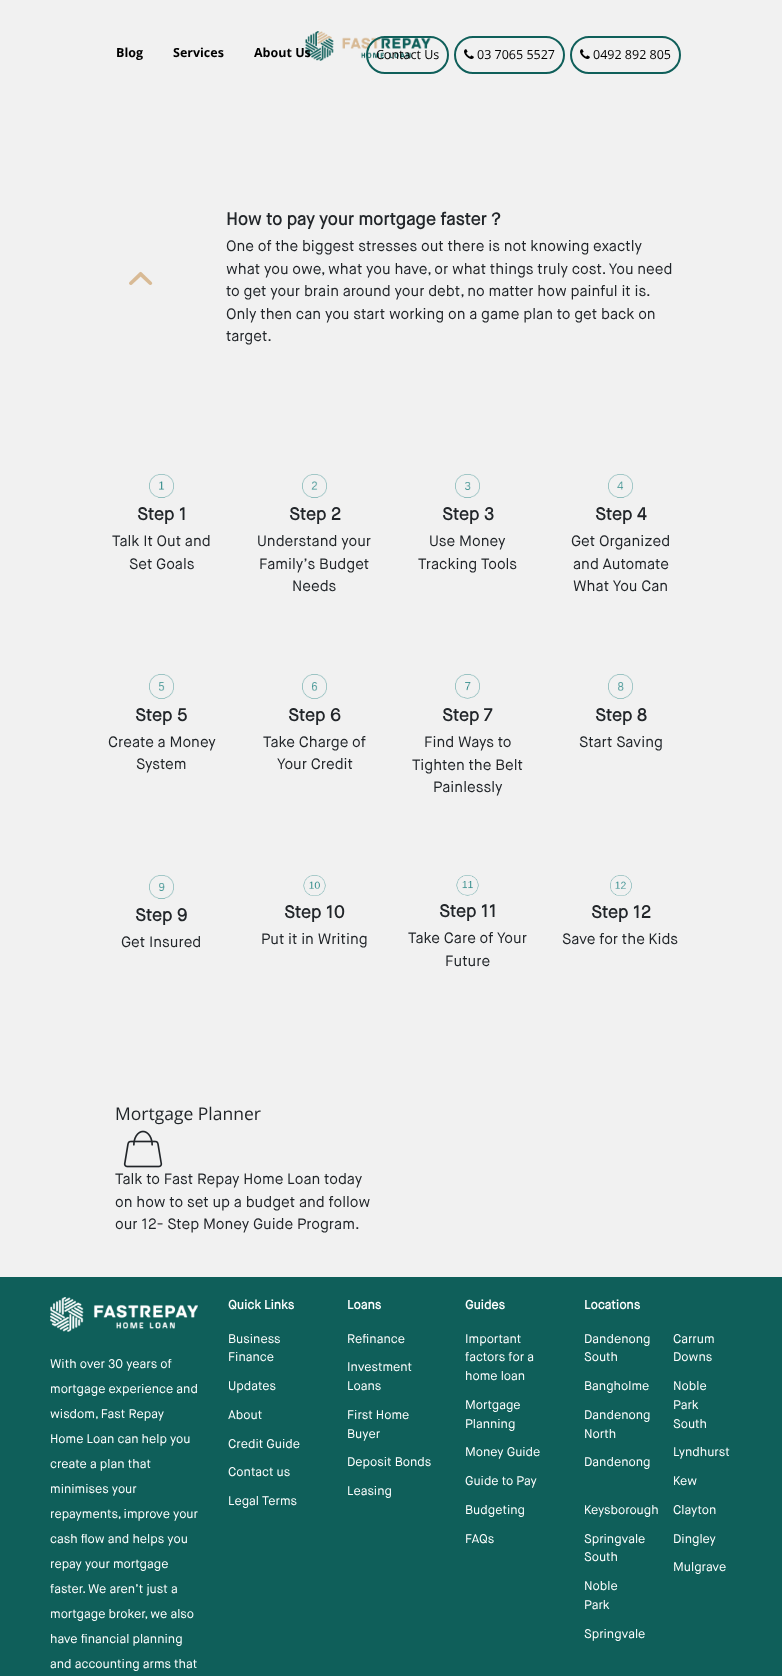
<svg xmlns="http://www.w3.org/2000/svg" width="782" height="1676">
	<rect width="100%" height="100%" fill="#F1F1F1" />
	<image x="305" y="31" width="126" height="30" href="assets/img1.png" />
	<g font-family="Open Sans" font-size="12.5" font-weight="700" fill="#000000">
		<text x="116" y="57">Blog</text>
		<text x="173" y="57">Services</text>
		<text x="254" y="57">About Us</text>
	</g>
	<rect x="367" y="37" width="81" height="36" rx="18" fill="none" stroke="#0F5F5A" stroke-width="2" />
	<text x="376" y="59" font-family="Open Sans" font-size="12.5" fill="#000000">Contact Us</text>
	<rect x="455" y="37" width="109" height="36" rx="18" fill="none" stroke="#0F5F5A" stroke-width="2" />
	<image x="464" y="49" width="10" height="10" href="assets/img2.png" />
	<text x="477" y="59" font-family="Open Sans" font-size="12.5" fill="#000000">03 7065 5527</text>
	<rect x="571" y="37" width="109" height="36" rx="18" fill="none" stroke="#0F5F5A" stroke-width="2" />
	<image x="580" y="49" width="10" height="10" href="assets/img2.png" />
	<text x="593" y="59" font-family="Open Sans" font-size="12.5" fill="#000000">0492 892 805</text>
	<image x="129" y="271" width="24" height="14" href="assets/img3.png" />
	<text x="226" y="225" font-family="Maison Neue" font-size="17.5" font-weight="700" fill="#212529">How to pay your mortgage faster</text>
	<text x="487" y="225" font-family="WenQuanYi Zen Hei" font-size="17.5" font-weight="700" fill="#212529">？</text>
	<g font-family="Maison Neue" font-size="15" fill="#212529">
		<text x="226" y="251">One of the biggest stresses out there is not knowing exactly</text>
		<text x="226" y="274">what you owe, what you have, or what things truly cost. You need</text>
		<text x="226" y="296">to get your brain around your debt, no matter how painful it is.</text>
		<text x="226" y="319">Only then can you start working on a game plan to get back on</text>
		<text x="226" y="341">target.</text>
	</g>
	<image x="149" y="474" width="25" height="24" href="assets/img4.png" />
	<text x="137" y="520" font-family="Maison Neue" font-size="17.5" font-weight="700" fill="#212529">Step 1</text>
	<g font-family="Maison Neue" font-size="15" fill="#212529">
		<text x="112" y="546">Talk It Out and</text>
		<text x="129" y="569">Set Goals</text>
	</g>
	<image x="302" y="474" width="25" height="24" href="assets/img5.png" />
	<text x="289" y="520" font-family="Maison Neue" font-size="17.5" font-weight="700" fill="#212529">Step 2</text>
	<g font-family="Maison Neue" font-size="15" fill="#212529">
		<text x="257" y="546">Understand your</text>
		<text x="259" y="569">Family’s Budget</text>
		<text x="292" y="591">Needs</text>
	</g>
	<image x="455" y="474" width="25" height="24" href="assets/img6.png" />
	<text x="442" y="520" font-family="Maison Neue" font-size="17.5" font-weight="700" fill="#212529">Step 3</text>
	<g font-family="Maison Neue" font-size="15" fill="#212529">
		<text x="429" y="546">Use Money</text>
		<text x="418" y="569">Tracking Tools</text>
	</g>
	<image x="608" y="474" width="25" height="24" href="assets/img7.png" />
	<text x="595" y="520" font-family="Maison Neue" font-size="17.5" font-weight="700" fill="#212529">Step 4</text>
	<g font-family="Maison Neue" font-size="15" fill="#212529">
		<text x="571" y="546">Get Organized</text>
		<text x="573" y="569">and Automate</text>
		<text x="573" y="591">What You Can</text>
	</g>
	<image x="149" y="674" width="25" height="25" href="assets/img8.png" />
	<text x="135" y="721" font-family="Maison Neue" font-size="17.5" font-weight="700" fill="#212529">Step 5</text>
	<g font-family="Maison Neue" font-size="15" fill="#212529">
		<text x="108" y="747">Create a Money</text>
		<text x="136" y="769">System</text>
	</g>
	<image x="302" y="674" width="25" height="25" href="assets/img9.png" />
	<text x="288" y="721" font-family="Maison Neue" font-size="17.5" font-weight="700" fill="#212529">Step 6</text>
	<g font-family="Maison Neue" font-size="15" fill="#212529">
		<text x="263" y="747">Take Charge of</text>
		<text x="277" y="769">Your Credit</text>
	</g>
	<image x="455" y="674" width="25" height="25" href="assets/img10.png" />
	<text x="442" y="721" font-family="Maison Neue" font-size="17.5" font-weight="700" fill="#212529">Step 7</text>
	<g font-family="Maison Neue" font-size="15" fill="#212529">
		<text x="424" y="747">Find Ways to</text>
		<text x="412" y="770">Tighten the Belt</text>
		<text x="433" y="792">Painlessly</text>
	</g>
	<image x="608" y="674" width="25" height="25" href="assets/img11.png" />
	<text x="595" y="721" font-family="Maison Neue" font-size="17.5" font-weight="700" fill="#212529">Step 8</text>
	<text x="579" y="747" font-family="Maison Neue" font-size="15" fill="#212529">Start Saving</text>
	<image x="149" y="875" width="25" height="24" href="assets/img12.png" />
	<text x="135" y="921" font-family="Maison Neue" font-size="17.5" font-weight="700" fill="#212529">Step 9</text>
	<text x="121" y="947" font-family="Maison Neue" font-size="15" fill="#212529">Get Insured</text>
	<image x="303" y="875" width="23" height="21" href="assets/img13.png" />
	<text x="284" y="918" font-family="Maison Neue" font-size="17.5" font-weight="700" fill="#212529">Step 10</text>
	<text x="261" y="944" font-family="Maison Neue" font-size="15" fill="#212529">Put it in Writing</text>
	<image x="456" y="875" width="23" height="21" href="assets/img14.png" />
	<text x="439" y="917" font-family="Maison Neue" font-size="17.5" font-weight="700" fill="#212529">Step 11</text>
	<g font-family="Maison Neue" font-size="15" fill="#212529">
		<text x="408" y="943">Take Care of Your</text>
		<text x="445" y="966">Future</text>
	</g>
	<image x="610" y="875" width="22" height="21" href="assets/img15.png" />
	<text x="591" y="918" font-family="Maison Neue" font-size="17.5" font-weight="700" fill="#212529">Step 12</text>
	<text x="562" y="944" font-family="Maison Neue" font-size="15" fill="#212529">Save for the Kids</text>
	<text x="115" y="1120" font-family="Open Sans" font-size="17.5" fill="#212529">Mortgage Planner</text>
	<image x="123" y="1130" width="40" height="38" href="assets/img16.png" />
	<g font-family="Maison Neue" font-size="15" fill="#212529">
		<text x="115" y="1184">Talk to Fast Repay Home Loan today</text>
		<text x="115" y="1207">on how to set up a budget and follow</text>
		<text x="115" y="1229">our 12- Step Money Guide Program.</text>
	</g>
	<rect x="0" y="1277" width="782" height="399" fill="#0F5F5A" />
	<image x="50" y="1297" width="148" height="35" href="assets/img17.png" />
	<g font-family="Maison Neue" font-size="12.5" fill="#FFFFFF">
		<text x="50" y="1368">With over 30 years of</text>
		<text x="50" y="1393">mortgage experience and</text>
		<text x="50" y="1418">wisdom, Fast Repay</text>
		<text x="50" y="1443">Home Loan can help you</text>
		<text x="50" y="1468">create a plan that</text>
		<text x="50" y="1493">minimises your</text>
		<text x="50" y="1518">repayments, improve your</text>
		<text x="50" y="1543">cash flow and helps you</text>
		<text x="50" y="1568">repay your mortgage</text>
		<text x="50" y="1593">faster. We aren’t just a</text>
		<text x="50" y="1618">mortgage broker, we also</text>
		<text x="50" y="1643">have financial planning</text>
		<text x="50" y="1668">and accounting arms that</text>
	</g>
	<text x="228" y="1309" font-family="Maison Neue" font-size="12.5" font-weight="700" fill="#FFFFFF">Quick Links</text>
	<g font-family="Maison Neue" font-size="12.5" fill="#FFFFFF">
		<text x="228" y="1343">Business</text>
		<text x="228" y="1361">Finance</text>
		<text x="228" y="1390">Updates</text>
		<text x="228" y="1419">About</text>
		<text x="228" y="1448">Credit Guide</text>
		<text x="228" y="1476">Contact us</text>
		<text x="228" y="1505">Legal Terms</text>
	</g>
	<text x="347" y="1309" font-family="Maison Neue" font-size="12.5" font-weight="700" fill="#FFFFFF">Loans</text>
	<g font-family="Maison Neue" font-size="12.5" fill="#FFFFFF">
		<text x="347" y="1343">Refinance</text>
		<text x="347" y="1371">Investment</text>
		<text x="347" y="1390">Loans</text>
		<text x="347" y="1419">First Home</text>
		<text x="347" y="1438">Buyer</text>
		<text x="347" y="1466">Deposit Bonds</text>
		<text x="347" y="1495">Leasing</text>
	</g>
	<text x="465" y="1309" font-family="Maison Neue" font-size="12.5" font-weight="700" fill="#FFFFFF">Guides</text>
	<g font-family="Maison Neue" font-size="12.5" fill="#FFFFFF">
		<text x="465" y="1343">Important</text>
		<text x="465" y="1361">factors for a</text>
		<text x="465" y="1380">home loan</text>
		<text x="465" y="1409">Mortgage</text>
		<text x="465" y="1428">Planning</text>
		<text x="465" y="1456">Money Guide</text>
		<text x="465" y="1485">Guide to Pay</text>
		<text x="465" y="1514">Budgeting</text>
		<text x="465" y="1543">FAQs</text>
	</g>
	<text x="584" y="1309" font-family="Maison Neue" font-size="12.5" font-weight="700" fill="#FFFFFF">Locations</text>
	<g font-family="Maison Neue" font-size="12.5" fill="#FFFFFF">
		<text x="584" y="1343">Dandenong</text>
		<text x="584" y="1361">South</text>
		<text x="584" y="1390">Bangholme</text>
		<text x="584" y="1419">Dandenong</text>
		<text x="584" y="1438">North</text>
		<text x="584" y="1466">Dandenong</text>
		<text x="673" y="1343">Carrum</text>
		<text x="673" y="1361">Downs</text>
		<text x="673" y="1390">Noble</text>
		<text x="673" y="1409">Park</text>
		<text x="673" y="1428">South</text>
		<text x="673" y="1456">Lyndhurst</text>
		<text x="673" y="1485">Kew</text>
		<text x="584" y="1514">Keysborough</text>
		<text x="584" y="1543">Springvale</text>
		<text x="584" y="1561">South</text>
		<text x="584" y="1590">Noble</text>
		<text x="584" y="1609">Park</text>
		<text x="584" y="1638">Springvale</text>
		<text x="673" y="1514">Clayton</text>
		<text x="673" y="1543">Dingley</text>
		<text x="673" y="1571">Mulgrave</text>
	</g>
</svg>
